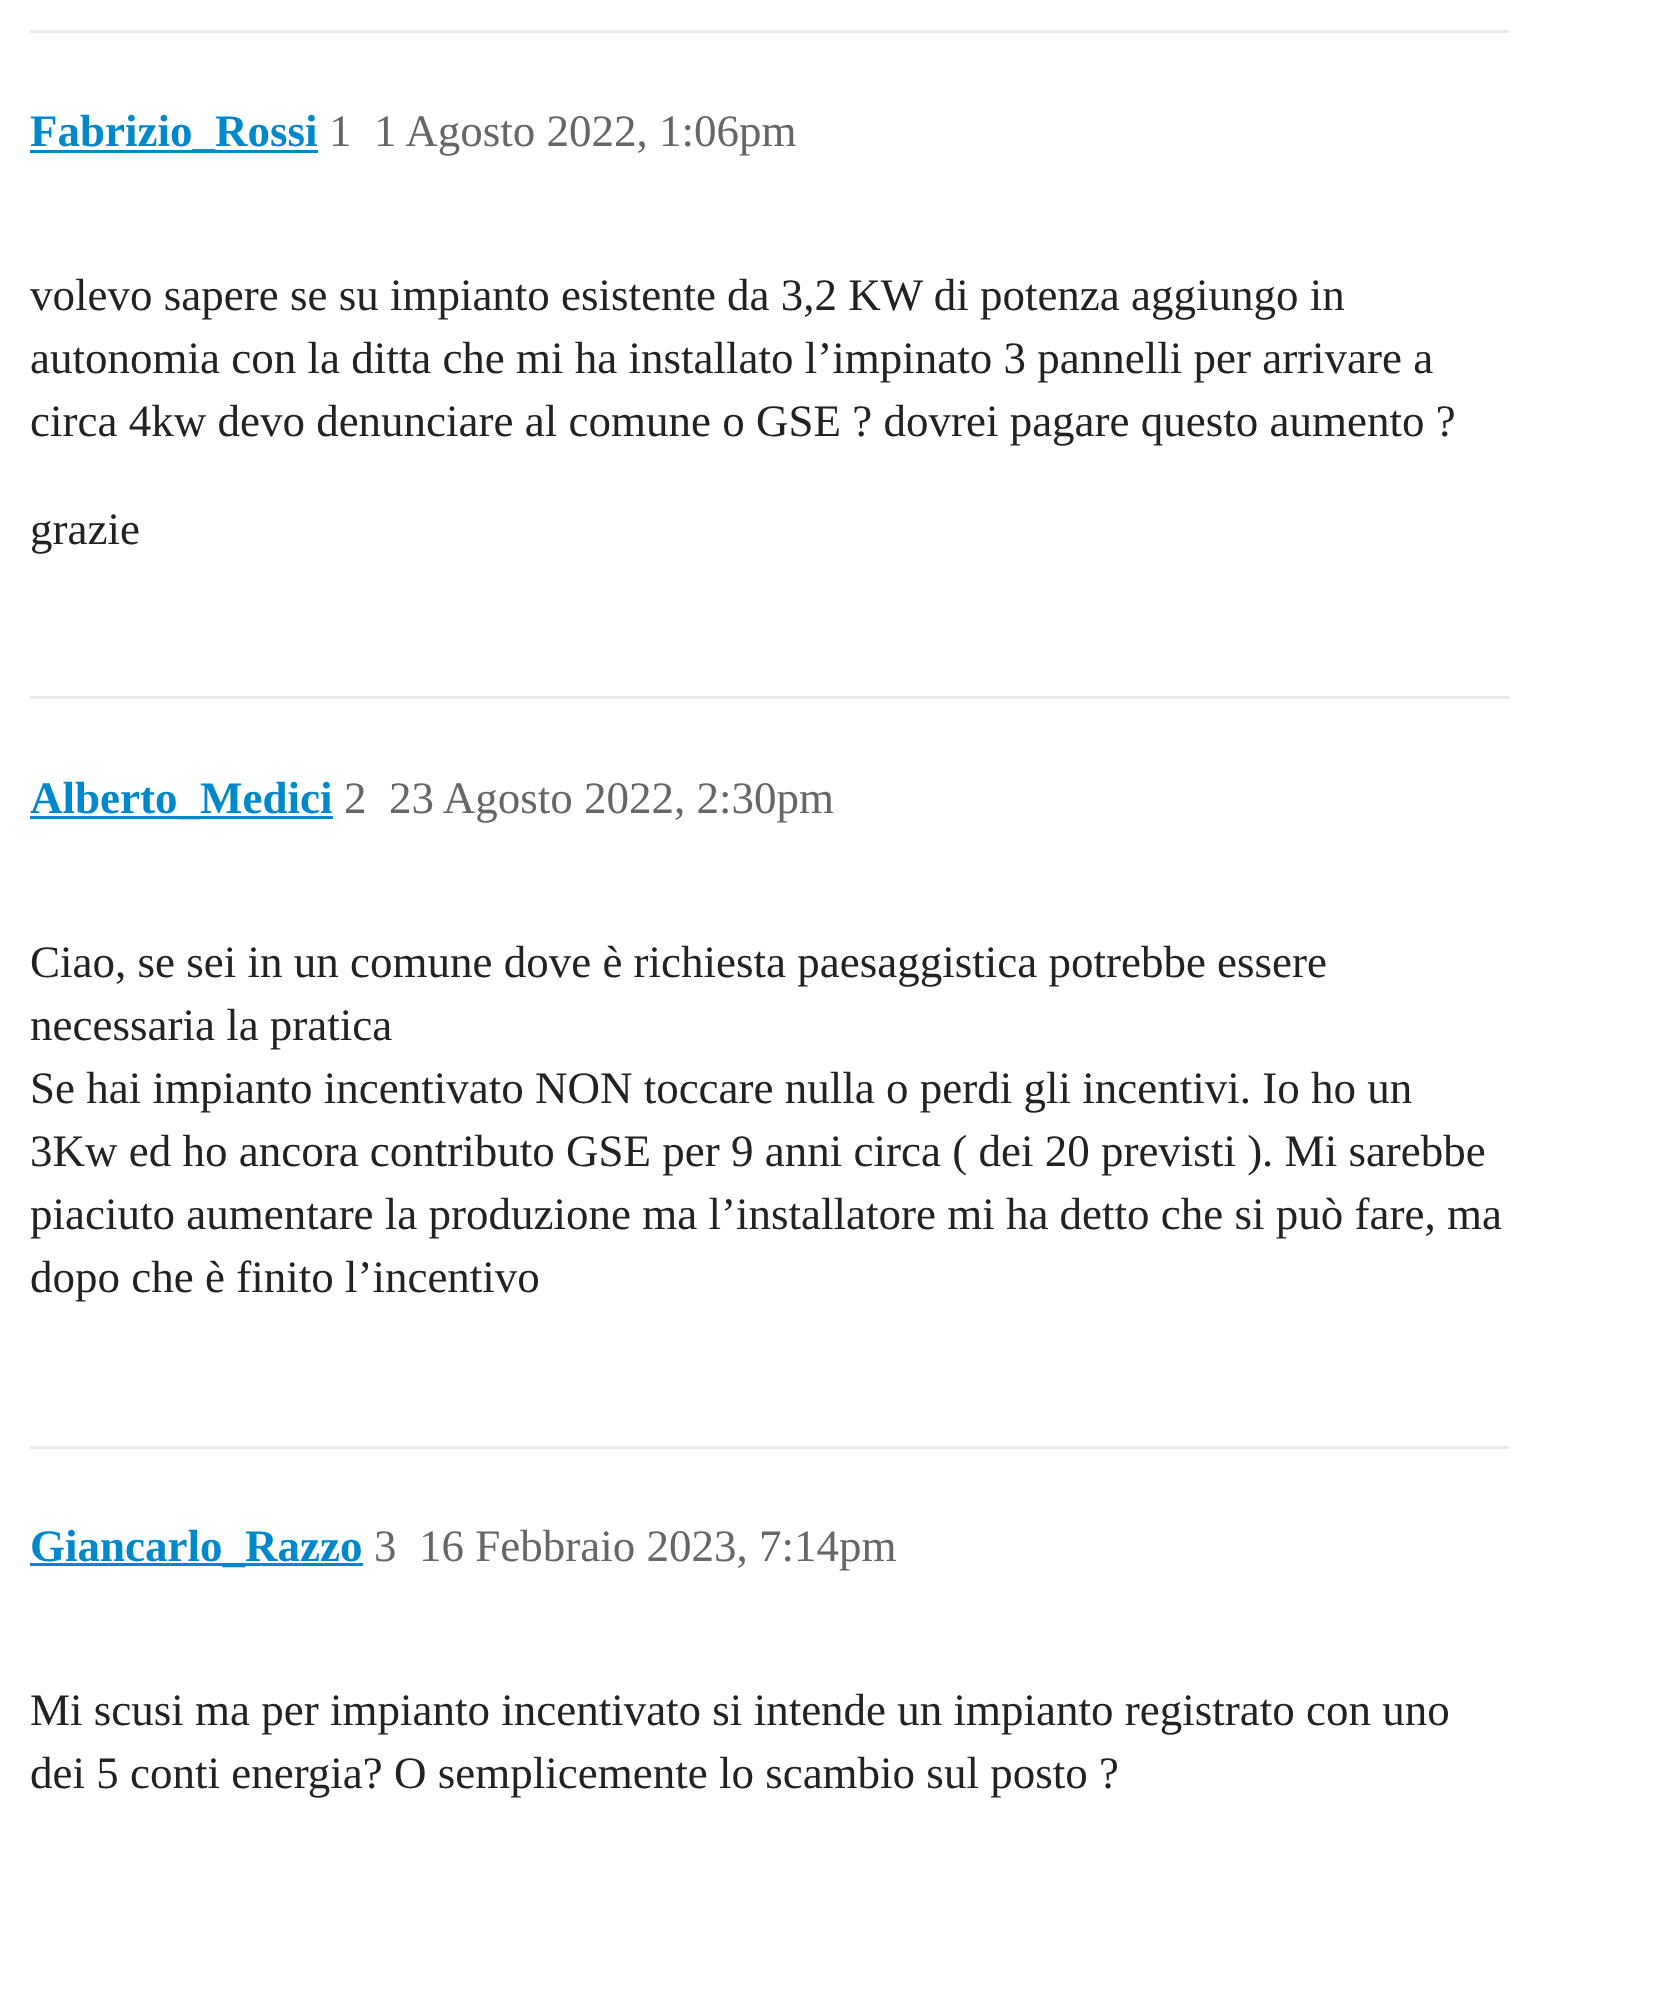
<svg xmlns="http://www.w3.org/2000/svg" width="1678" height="2015">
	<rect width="100%" height="100%" fill="#FFFFFF" />
	<rect x="30" y="30" width="1479" height="3" fill="#E9E9E9" />
	<rect x="30" y="150" width="288" height="3" fill="#0088CC" />
	<text x="30" y="146" font-family="Liberation Serif" font-size="45" font-weight="700" fill="#0088CC">Fabrizio_Rossi</text>
	<g font-family="Liberation Serif" font-size="45" fill="#666666">
		<text x="329" y="146">1</text>
		<text x="374" y="146">1 Agosto 2022, 1:06pm</text>
	</g>
	<g font-family="Liberation Serif" font-size="45" fill="#222222">
		<text x="30" y="310">volevo sapere se su impianto esistente</text>
		<text x="727" y="310">da 3,2 KW di potenza aggiungo in</text>
		<text x="30" y="373">autonomia con la ditta che mi ha installato l’impinato 3 pannelli per arrivare a</text>
		<text x="30" y="436">circa 4kw devo denunciare al comune o GSE ? dovrei pagare questo aumento ?</text>
		<text x="30" y="544">grazie</text>
	</g>
	<rect x="30" y="696" width="1479" height="3" fill="#E9E9E9" />
	<rect x="30" y="816" width="303" height="3" fill="#0088CC" />
	<text x="30" y="813" font-family="Liberation Serif" font-size="45" font-weight="700" fill="#0088CC">Alberto_Medici</text>
	<g font-family="Liberation Serif" font-size="45" fill="#666666">
		<text x="344" y="813">2</text>
		<text x="389" y="813">23 Agosto 2022, 2:30pm</text>
	</g>
	<g font-family="Liberation Serif" font-size="45" fill="#222222">
		<text x="30" y="977">Ciao, se sei in un comune dove è richiesta paesaggistica potrebbe essere</text>
		<text x="30" y="1040">necessaria la pratica</text>
		<text x="30" y="1103">Se hai impianto incentivato NON toccare nulla o perdi gli incentivi. Io ho un</text>
		<text x="30" y="1166">3Kw ed ho ancora contributo GSE per 9 anni circa ( dei 20 previsti ). Mi sarebbe</text>
		<text x="30" y="1229">piaciuto aumentare la produzione ma l’installatore mi ha detto che si può fare, ma</text>
		<text x="30" y="1292">dopo che è finito l’incentivo</text>
	</g>
	<rect x="30" y="1446" width="1479" height="3" fill="#E9E9E9" />
	<rect x="30" y="1563" width="333" height="3" fill="#0088CC" />
	<text x="30" y="1561" font-family="Liberation Serif" font-size="45" font-weight="700" fill="#0088CC">Giancarlo_Razzo</text>
	<g font-family="Liberation Serif" font-size="45" fill="#666666">
		<text x="374" y="1561">3</text>
		<text x="419" y="1561">16 Febbraio 2023, 7:14pm</text>
	</g>
	<g font-family="Liberation Serif" font-size="45" fill="#222222">
		<text x="30" y="1725">Mi scusi ma per impianto incentivato si intende un impianto registrato con uno</text>
		<text x="30" y="1788">dei 5 conti energia? O semplicemente lo scambio sul posto ?</text>
	</g>
</svg>
